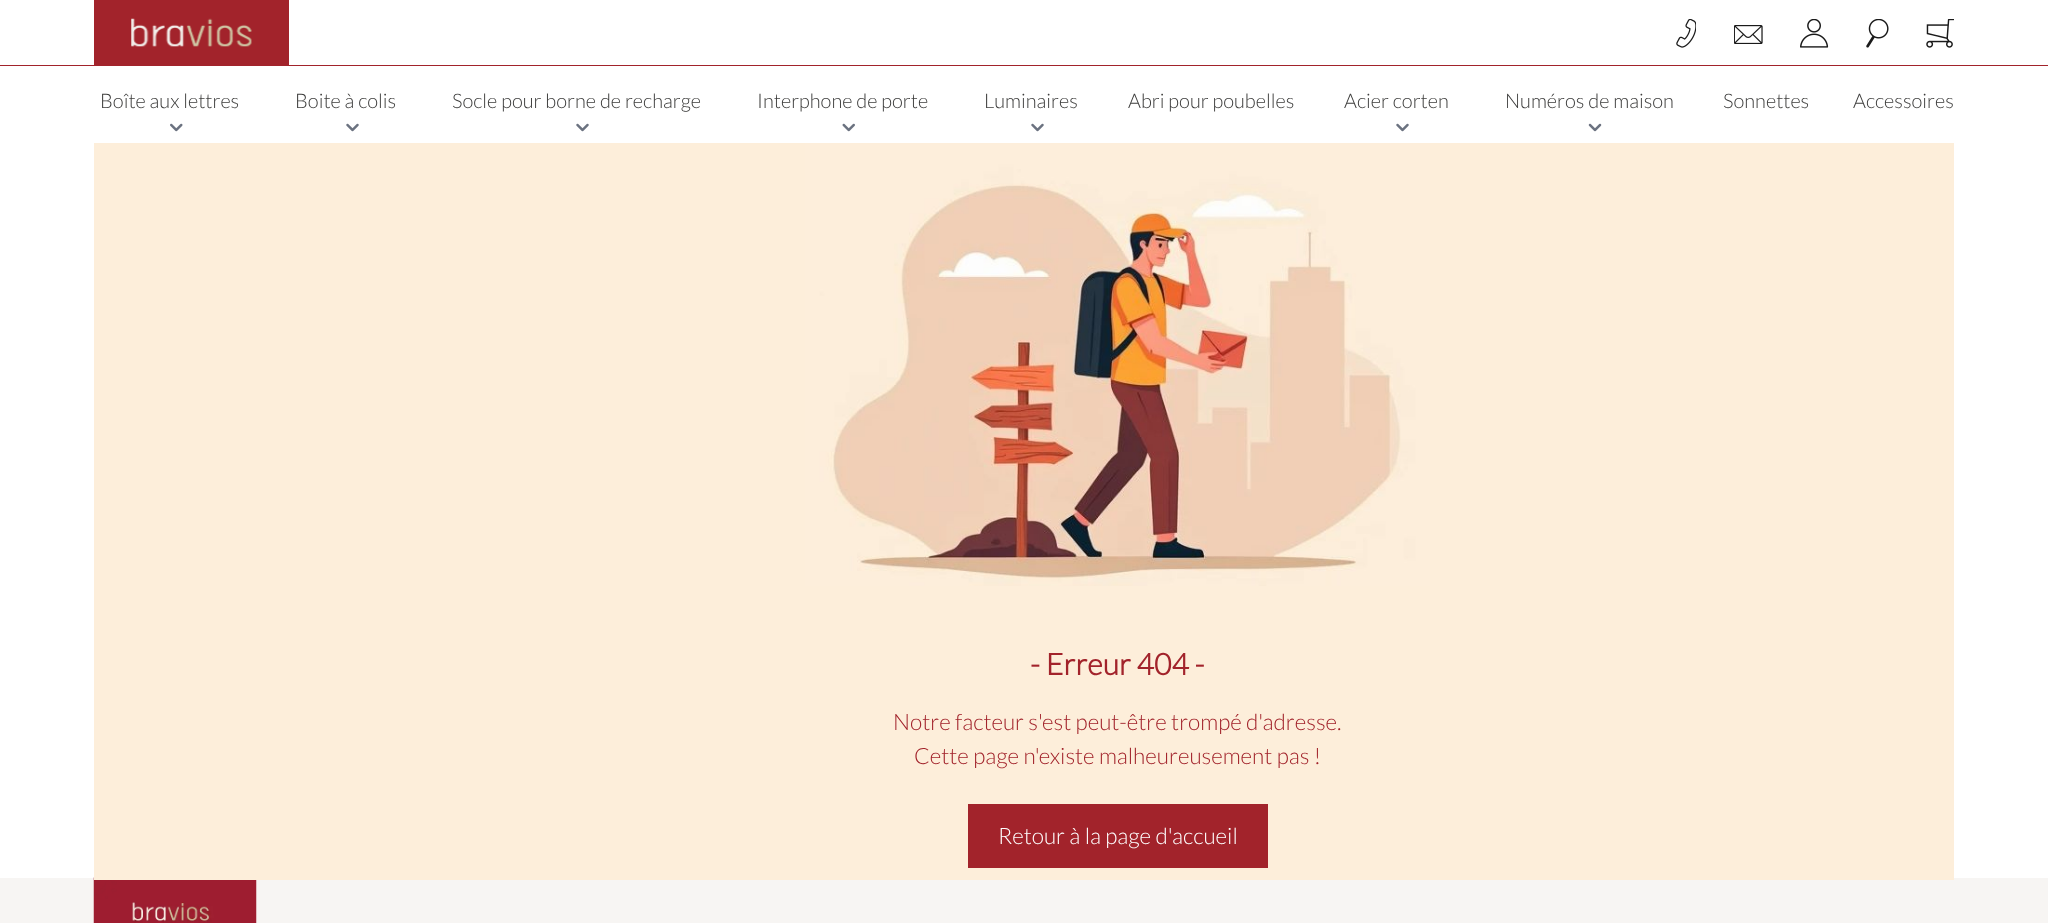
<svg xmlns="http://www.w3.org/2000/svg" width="2066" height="923">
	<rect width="100%" height="100%" fill="#FFFFFF" />
	<rect x="0" y="65" width="2048" height="1" fill="#A2232B" />
	<rect x="94" y="0" width="195" height="65" fill="#A2232B" />
	<image x="131" y="18" width="121" height="29" href="assets/img1.png" />
	<image x="1676" y="19" width="20" height="29" href="assets/img2.png" />
	<image x="1734" y="25" width="29" height="19" href="assets/img3.png" />
	<image x="1800" y="19" width="29" height="29" href="assets/img4.png" />
	<image x="1866" y="19" width="23" height="29" href="assets/img5.png" />
	<image x="1926" y="19" width="28" height="29" href="assets/img6.png" />
	<text x="100" y="108" font-family="Lato" font-size="20" font-weight="300" fill="#3C3C3B">Boîte aux lettres</text>
	<image x="170" y="123" width="13" height="9" href="assets/img7.png" />
	<text x="295" y="108" font-family="Lato" font-size="20" font-weight="300" fill="#3C3C3B">Boite à colis</text>
	<image x="346" y="123" width="13" height="9" href="assets/img8.png" />
	<text x="452" y="108" font-family="Lato" font-size="20" font-weight="300" fill="#3C3C3B">Socle pour borne de recharge</text>
	<image x="576" y="123" width="13" height="9" href="assets/img8.png" />
	<text x="757" y="108" font-family="Lato" font-size="20" font-weight="300" fill="#3C3C3B">Interphone de porte</text>
	<image x="842" y="123" width="13" height="9" href="assets/img9.png" />
	<text x="984" y="108" font-family="Lato" font-size="20" font-weight="300" fill="#3C3C3B">Luminaires</text>
	<image x="1031" y="123" width="13" height="9" href="assets/img8.png" />
	<g font-family="Lato" font-size="20" font-weight="300" fill="#3C3C3B">
		<text x="1128" y="108">Abri pour poubelles</text>
		<text x="1344" y="108">Acier corten</text>
	</g>
	<image x="1396" y="123" width="13" height="9" href="assets/img8.png" />
	<text x="1505" y="108" font-family="Lato" font-size="20" font-weight="300" fill="#3C3C3B">Numéros de maison</text>
	<image x="1588" y="123" width="14" height="9" href="assets/img10.png" />
	<g font-family="Lato" font-size="20" font-weight="300" fill="#3C3C3B">
		<text x="1723" y="108">Sonnettes</text>
		<text x="1853" y="108">Accessoires</text>
	</g>
	<rect x="0" y="878" width="2048" height="45" fill="#F7F5F3" />
	<image x="93" y="877" width="164" height="46" href="assets/img12.png" />
	<rect x="94" y="143" width="1860" height="737" fill="#FDEEDA" />
	<image x="805" y="143" width="625" height="443" href="assets/img11.png" />
	<text x="1030" y="675" font-family="Lato" font-size="30" font-weight="700" fill="#A2232B">- Erreur 404 -</text>
	<g font-family="Lato" font-size="22.5" font-weight="300" fill="#A2232B">
		<text x="893" y="730">Notre facteur s'est peut-être trompé d'adresse.</text>
		<text x="914" y="764">Cette page n'existe malheureusement pas !</text>
	</g>
	<rect x="968" y="804" width="300" height="64" fill="#A2232B" />
	<text x="998" y="844" font-family="Lato" font-size="22.5" font-weight="300" fill="#FFFFFF">Retour à la page d'accueil</text>
</svg>
